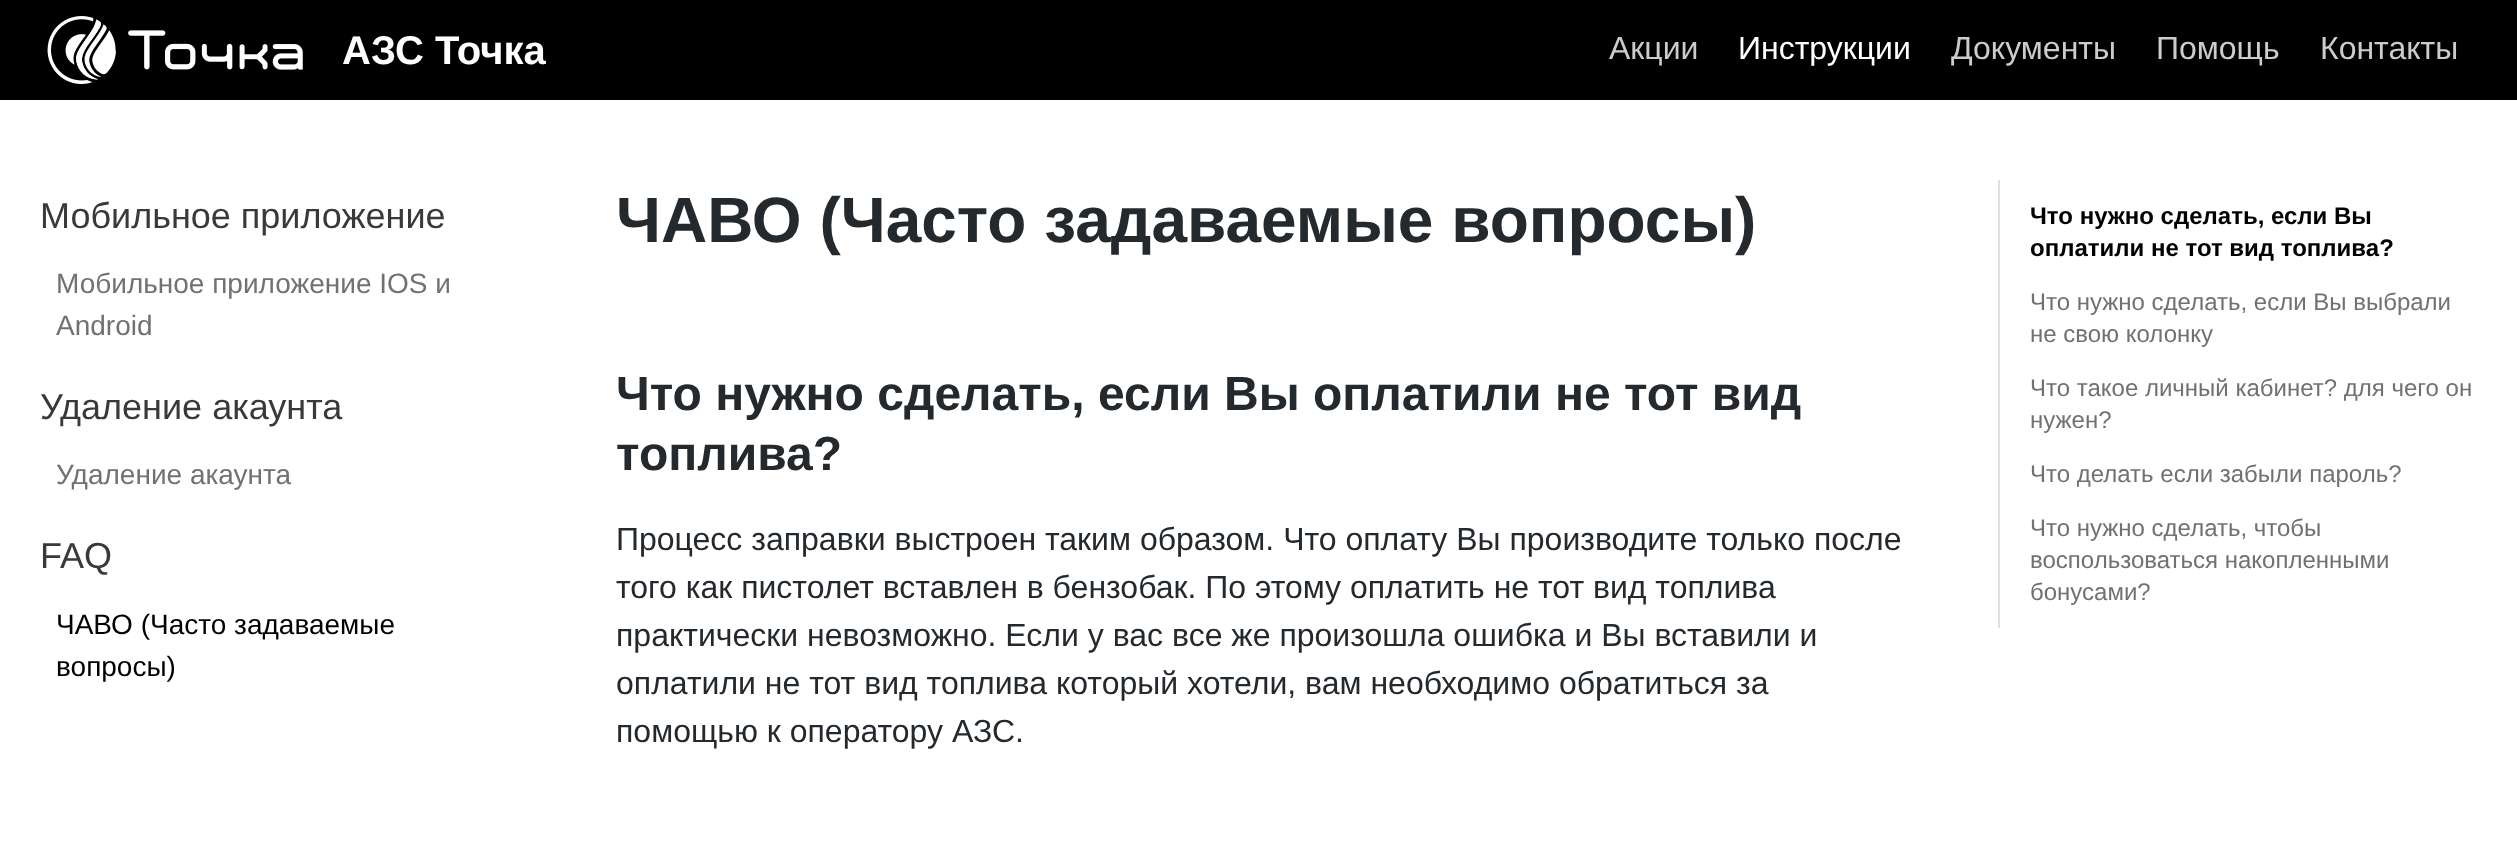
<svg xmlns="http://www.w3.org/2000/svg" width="2517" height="858">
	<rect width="100%" height="100%" fill="#FFFFFF" />
	<rect x="0" y="0" width="2517" height="100" fill="#000000" />
	<image x="47" y="16" width="256" height="68" href="assets/img1.png" />
	<text x="342" y="64" font-family="Liberation Sans" font-size="40" font-weight="700" fill="#FFFFFF">АЗС Точка</text>
	<text x="1609" y="59" font-family="Liberation Sans" font-size="32" fill="#CCCCCC">Акции</text>
	<text x="1738" y="59" font-family="Liberation Sans" font-size="32" fill="#FFFFFF">Инструкции</text>
	<g font-family="Liberation Sans" font-size="32" fill="#CCCCCC">
		<text x="1951" y="59">Документы</text>
		<text x="2156" y="59">Помощь</text>
		<text x="2320" y="59">Контакты</text>
	</g>
	<text x="40" y="228" font-family="Liberation Sans" font-size="36" fill="#393939">Мобильное приложение</text>
	<g font-family="Liberation Sans" font-size="28" fill="#717171">
		<text x="56" y="293">Мобильное приложение IOS и</text>
		<text x="56" y="335">Android</text>
	</g>
	<text x="40" y="419" font-family="Liberation Sans" font-size="36" fill="#393939">Удаление акаунта</text>
	<text x="56" y="484" font-family="Liberation Sans" font-size="28" fill="#717171">Удаление акаунта</text>
	<text x="40" y="568" font-family="Liberation Sans" font-size="36" fill="#393939">FAQ</text>
	<g font-family="Liberation Sans" font-size="28" fill="#000000">
		<text x="56" y="634">ЧАВО (Часто задаваемые</text>
		<text x="56" y="676">вопросы)</text>
	</g>
	<text x="616" y="242" font-family="Liberation Sans" font-size="64" font-weight="700" fill="#24292E">ЧАВО (Часто задаваемые вопросы)</text>
	<g font-family="Liberation Sans" font-size="48" font-weight="700" fill="#24292E">
		<text x="616" y="410">Что нужно сделать, если Вы оплатили не тот вид</text>
		<text x="616" y="470">топлива?</text>
	</g>
	<g font-family="Liberation Sans" font-size="32" fill="#24292E">
		<text x="616" y="550">Процесс заправки выстроен таким образом. Что оплату Вы производите только после</text>
		<text x="616" y="598">того как пистолет вставлен в бензобак. По этому оплатить не тот вид топлива</text>
		<text x="616" y="646">практически невозможно. Если у вас все же произошла ошибка и Вы вставили и</text>
		<text x="616" y="694">оплатили не тот вид топлива который хотели, вам необходимо обратиться за</text>
		<text x="616" y="742">помощью к оператору АЗС.</text>
	</g>
	<rect x="1998" y="180" width="2" height="448" fill="#E0E0E0" />
	<g font-family="Liberation Sans" font-size="24" font-weight="700" fill="#000000">
		<text x="2030" y="224">Что нужно сделать, если Вы</text>
		<text x="2030" y="256">оплатили не тот вид топлива?</text>
	</g>
	<g font-family="Liberation Sans" font-size="24" fill="#717171">
		<text x="2030" y="310">Что нужно сделать, если Вы выбрали</text>
		<text x="2030" y="342">не свою колонку</text>
		<text x="2030" y="396">Что такое личный кабинет? для чего он</text>
		<text x="2030" y="428">нужен?</text>
		<text x="2030" y="482">Что делать если забыли пароль?</text>
		<text x="2030" y="536">Что нужно сделать, чтобы</text>
		<text x="2030" y="568">воспользоваться накопленными</text>
		<text x="2030" y="600">бонусами?</text>
	</g>
</svg>
